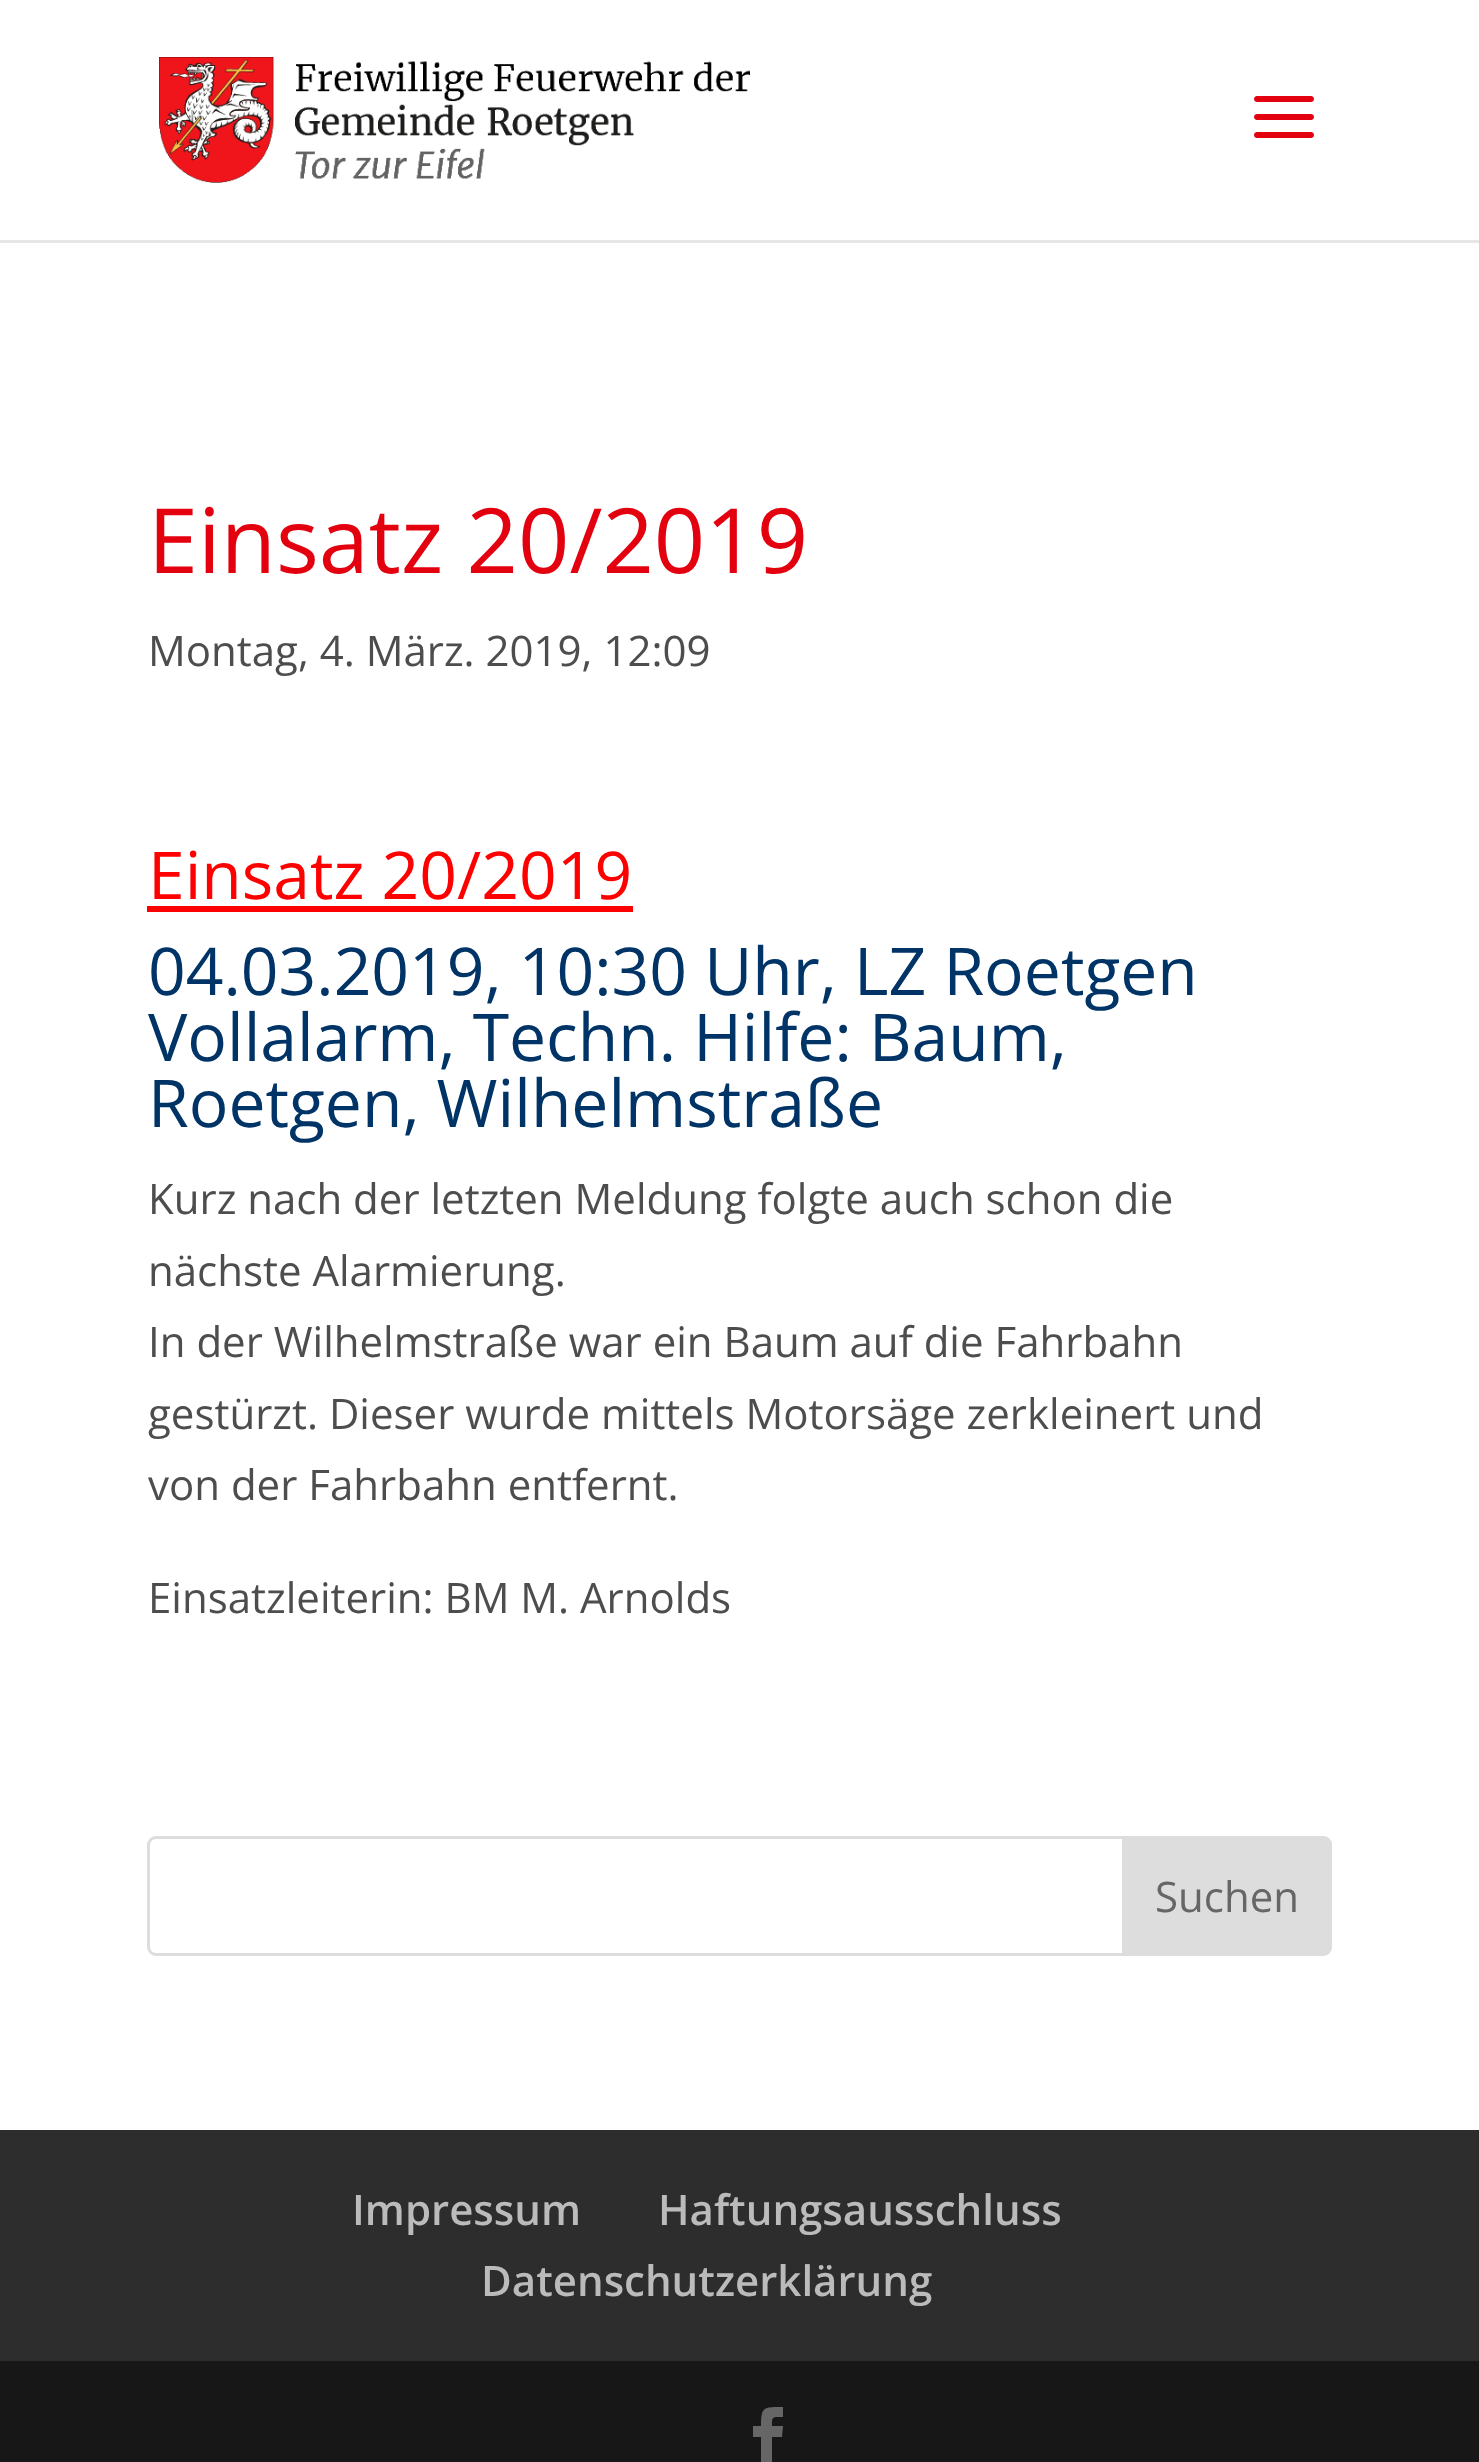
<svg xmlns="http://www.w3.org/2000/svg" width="1479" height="2462">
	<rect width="100%" height="100%" fill="#FFFFFF" />
	<rect x="0" y="240" width="1479" height="3" fill="#E6E6E6" />
	<image x="159" y="57" width="591" height="126" href="assets/img1.png" />
	<image x="1254" y="96" width="60" height="42" href="assets/img2.png" />
	<text x="148" y="573" font-family="Open Sans" font-size="90" fill="#E3000F">Einsatz 20/2019</text>
	<text x="148" y="666" font-family="Open Sans" font-size="42" fill="#4D4D4D">Montag, 4. März. 2019, 12:09</text>
	<text x="148" y="899" font-family="Open Sans" font-size="66" fill="#FF0000">Einsatz 20/2019</text>
	<rect x="147" y="906" width="486" height="6" fill="#FF0000" />
	<g font-family="Open Sans" font-size="66" fill="#003366">
		<text x="148" y="995">04.03.2019, 10:30 Uhr, LZ Roetgen</text>
		<text x="148" y="1061">Vollalarm, Techn. Hilfe: Baum,</text>
		<text x="148" y="1127">Roetgen, Wilhelmstraße</text>
	</g>
	<g font-family="Open Sans" font-size="42" fill="#4D4D4D">
		<text x="148" y="1214">Kurz nach der letzten Meldung folgte auch schon die</text>
		<text x="148" y="1286">nächste Alarmierung.</text>
		<text x="148" y="1357">In der Wilhelmstraße war ein Baum auf die Fahrbahn</text>
		<text x="148" y="1429">gestürzt. Dieser wurde mittels Motorsäge zerkleinert und</text>
		<text x="148" y="1500">von der Fahrbahn entfernt.</text>
		<text x="148" y="1613">Einsatzleiterin: BM M. Arnolds</text>
	</g>
	<rect x="148.5" y="1837.5" width="1182" height="117" rx="7.5" fill="none" stroke="#DDDDDD" stroke-width="3" />
	<path d="M1123.5 1837.5H1323C1327 1837.5 1330.5 1841 1330.5 1845V1947C1330.5 1951 1327 1954.5 1323 1954.5H1123.5Z" fill="#DDDDDD" stroke="#DDDDDD" stroke-width="3" />
	<text x="1155" y="1912" font-family="Open Sans" font-size="42" fill="#666666">Suchen</text>
	<rect x="0" y="2130" width="1479" height="231" fill="#2D2D2D" />
	<g font-family="Open Sans" font-size="42" font-weight="600" fill="#BBBBBB">
		<text x="352" y="2225">Impressum</text>
		<text x="658" y="2225">Haftungsausschluss</text>
		<text x="481" y="2296">Datenschutzerklärung</text>
	</g>
	<rect x="0" y="2361" width="1479" height="101" fill="#171717" />
	<path d="M761 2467H772V2437H782L783 2426H772C772 2416 772 2417 783 2417V2407C764 2407 761 2406 761 2426H753V2437H761Z" fill="#666666" />
</svg>
